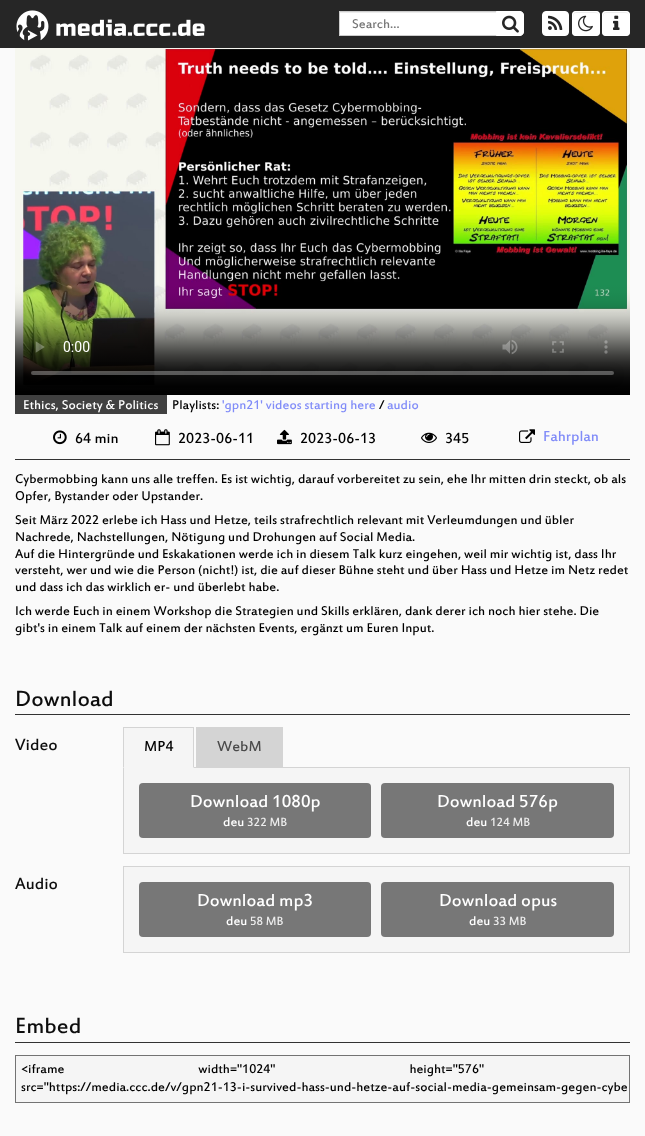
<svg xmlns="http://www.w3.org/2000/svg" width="645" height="1136">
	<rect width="100%" height="100%" fill="#FAFAFA" />
	<rect x="0" y="0" width="645" height="48" fill="#262626" />
	<image x="16" y="10" width="189" height="31" href="assets/img1.png" />
	<rect x="340" y="13" width="156" height="22" fill="#FFFFFF" />
	<rect x="340" y="12" width="156" height="1" fill="#ECECEC" />
	<rect x="339.5" y="11.5" width="157" height="24" fill="none" stroke="#CCCCCC" />
	<text x="352" y="28" font-family="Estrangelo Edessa" font-size="14" fill="#777777">Search…</text>
	<path d="M496.5 11.5H520C522 11.5 523.5 13 523.5 15V32C523.5 34 522 35.5 520 35.5H496.5Z" fill="#FFFFFF" stroke="#FFFFFF" />
	<image x="502" y="15" width="17" height="18" href="assets/img2.png" />
	<rect x="542.5" y="11.5" width="26" height="24" rx="3.5" fill="#FFFFFF" stroke="#FFFFFF" />
	<image x="548" y="15" width="15" height="15" href="assets/img3.png" />
	<rect x="572" y="11" width="28" height="25" rx="4" fill="#FFFFFF" />
	<path d="M576 13H593C597.5 13 599 13.5 599 16V15C599 13.5 597.5 12 596 12H576C574.5 12 573 13.5 573 15V19C573 17 573 13 576 13ZM573 33V30Z" fill="#ECECEC" fill-rule="evenodd" />
	<rect x="572.5" y="11.5" width="27" height="24" rx="3.5" fill="none" stroke="#FFFFFF" />
	<image x="578" y="15" width="15" height="17" href="assets/img4.png" />
	<rect x="602" y="11" width="28" height="25" rx="4" fill="#FFFFFF" />
	<path d="M606 13H623C627.5 13 629 13.5 629 16V15C629 13.5 627.5 12 626 12H606C604.5 12 603 13.5 603 15V19C603 17 603 13 606 13ZM603 33V30Z" fill="#ECECEC" fill-rule="evenodd" />
	<rect x="602.5" y="11.5" width="27" height="24" rx="3.5" fill="none" stroke="#FFFFFF" />
	<image x="613" y="15" width="7" height="15" href="assets/img5.png" />
	<image x="15" y="48" width="615" height="347" href="assets/img6.png" />
	<rect x="15" y="395" width="152" height="19" fill="#404040" />
	<text x="23" y="409" font-family="Estrangelo Edessa" font-size="14" fill="#FFFFFF">Ethics, Society &amp; Politics</text>
	<text x="172" y="409" font-family="Estrangelo Edessa" font-size="14" fill="#000000">Playlists:</text>
	<text x="222" y="409" font-family="Estrangelo Edessa" font-size="14" fill="#818CF8">'gpn21' videos starting here</text>
	<text x="379" y="409" font-family="Estrangelo Edessa" font-size="14" fill="#000000">/</text>
	<text x="387" y="409" font-family="Estrangelo Edessa" font-size="14" fill="#818CF8">audio</text>
	<rect x="15" y="459" width="615" height="1" fill="#323232" />
	<image x="53" y="430" width="14" height="15" href="assets/img7.png" />
	<text x="75" y="443" font-family="Estrangelo Edessa" font-size="16" fill="#000000">64 min</text>
	<image x="155" y="429" width="15" height="17" href="assets/img8.png" />
	<text x="178" y="443" font-family="Estrangelo Edessa" font-size="16" fill="#000000">2023-06-11</text>
	<image x="277" y="429" width="15" height="16" href="assets/img9.png" />
	<text x="300" y="443" font-family="Estrangelo Edessa" font-size="16" fill="#000000">2023-06-13</text>
	<image x="421" y="432" width="16" height="11" href="assets/img10.png" />
	<text x="445" y="443" font-family="Estrangelo Edessa" font-size="16" fill="#000000">345</text>
	<image x="519" y="429" width="16" height="14" href="assets/img11.png" />
	<text x="543" y="441" font-family="Estrangelo Edessa" font-size="16" fill="#818CF8">Fahrplan</text>
	<g font-family="Estrangelo Edessa" font-size="14" fill="#000000">
		<text x="15" y="483">Cybermobbing kann uns alle treffen. Es ist wichtig, darauf vorbereitet zu sein, ehe Ihr mitten drin steckt, ob als</text>
		<text x="15" y="500">Opfer, Bystander oder Upstander.</text>
		<text x="15" y="524">Seit März 2022 erlebe ich Hass und Hetze, teils strafrechtlich relevant mit Verleumdungen und übler</text>
		<text x="15" y="541">Nachrede, Nachstellungen, Nötigung und Drohungen auf Social Media.</text>
		<text x="15" y="558">Auf die Hintergründe und Eskakationen werde ich in diesem Talk kurz eingehen, weil mir wichtig ist, dass Ihr</text>
		<text x="15" y="574">versteht, wer und wie die Person (nicht!) ist, die auf dieser Bühne steht und über Hass und Hetze im Netz redet</text>
		<text x="15" y="591">und dass ich das wirklich er- und überlebt habe.</text>
		<text x="15" y="615">Ich werde Euch in einem Workshop die Strategien und Skills erklären, dank derer ich noch hier stehe. Die</text>
		<text x="15" y="632">gibt's in einem Talk auf einem der nächsten Events, ergänzt um Euren Input.</text>
	</g>
	<rect x="15" y="714" width="615" height="1" fill="#323232" />
	<text x="15" y="706" font-family="Estrangelo Edessa" font-size="24" fill="#0D0D0D">Download</text>
	<text x="15" y="750" font-family="Estrangelo Edessa" font-size="18" fill="#0D0D0D">Video</text>
	<rect x="123.5" y="767.5" width="506" height="86" fill="#F5F5F5" stroke="#D4D4D4" />
	<rect x="123" y="728" width="71" height="40" fill="#F5F5F5" />
	<rect x="123" y="727" width="71" height="1" fill="#D4D4D4" />
	<path d="M194 727V768L193 767V728Z" fill="#D4D4D4" />
	<path d="M123 768V727L124 728V767Z" fill="#D4D4D4" />
	<text x="144" y="751" font-family="Estrangelo Edessa" font-size="16" fill="#000000">MP4</text>
	<rect x="196" y="727" width="87" height="40" fill="#D4D4D4" />
	<text x="217" y="751" font-family="Estrangelo Edessa" font-size="16" fill="#4A4A4A">WebM</text>
	<rect x="139" y="783" width="232" height="55" rx="4" fill="#777777" />
	<text x="190" y="807" font-family="Estrangelo Edessa" font-size="19" fill="#FFFFFF">Download 1080p</text>
	<text x="223" y="826" font-family="Estrangelo Edessa" font-size="14" fill="#FFFFFF">deu</text>
	<text x="247" y="826" font-family="Estrangelo Edessa" font-size="13" fill="#EEEEEE">322 MB</text>
	<rect x="381" y="783" width="233" height="55" rx="4" fill="#777777" />
	<text x="437" y="807" font-family="Estrangelo Edessa" font-size="19" fill="#FFFFFF">Download 576p</text>
	<text x="466" y="826" font-family="Estrangelo Edessa" font-size="14" fill="#FFFFFF">deu</text>
	<text x="490" y="826" font-family="Estrangelo Edessa" font-size="13" fill="#EEEEEE">124 MB</text>
	<text x="15" y="889" font-family="Estrangelo Edessa" font-size="18" fill="#0D0D0D">Audio</text>
	<rect x="123.5" y="866.5" width="506" height="86" fill="#F5F5F5" stroke="#D4D4D4" />
	<rect x="139" y="882" width="232" height="55" rx="4" fill="#777777" />
	<text x="197" y="906" font-family="Estrangelo Edessa" font-size="19" fill="#FFFFFF">Download mp3</text>
	<text x="226" y="925" font-family="Estrangelo Edessa" font-size="14" fill="#FFFFFF">deu</text>
	<text x="250" y="925" font-family="Estrangelo Edessa" font-size="13" fill="#EEEEEE">58 MB</text>
	<rect x="381" y="882" width="233" height="55" rx="4" fill="#777777" />
	<text x="439" y="906" font-family="Estrangelo Edessa" font-size="19" fill="#FFFFFF">Download opus</text>
	<text x="469" y="925" font-family="Estrangelo Edessa" font-size="14" fill="#FFFFFF">deu</text>
	<text x="493" y="925" font-family="Estrangelo Edessa" font-size="13" fill="#EEEEEE">33 MB</text>
	<rect x="15" y="1042" width="615" height="1" fill="#323232" />
	<text x="15" y="1033" font-family="Estrangelo Edessa" font-size="24" fill="#0D0D0D">Embed</text>
	<rect x="15.5" y="1055.5" width="614" height="47" fill="#F5F5F5" stroke="#737373" />
	<g font-family="Estrangelo Edessa" font-size="14" fill="#000000">
		<text x="21" y="1073" word-spacing="131">&lt;iframe width="1024" height="576"</text>
		<text x="21" y="1091">src="https://media.ccc.de/v/gpn21-13-i-survived-hass-und-hetze-auf-social-media-gemeinsam-gegen-cybe</text>
	</g>
</svg>
